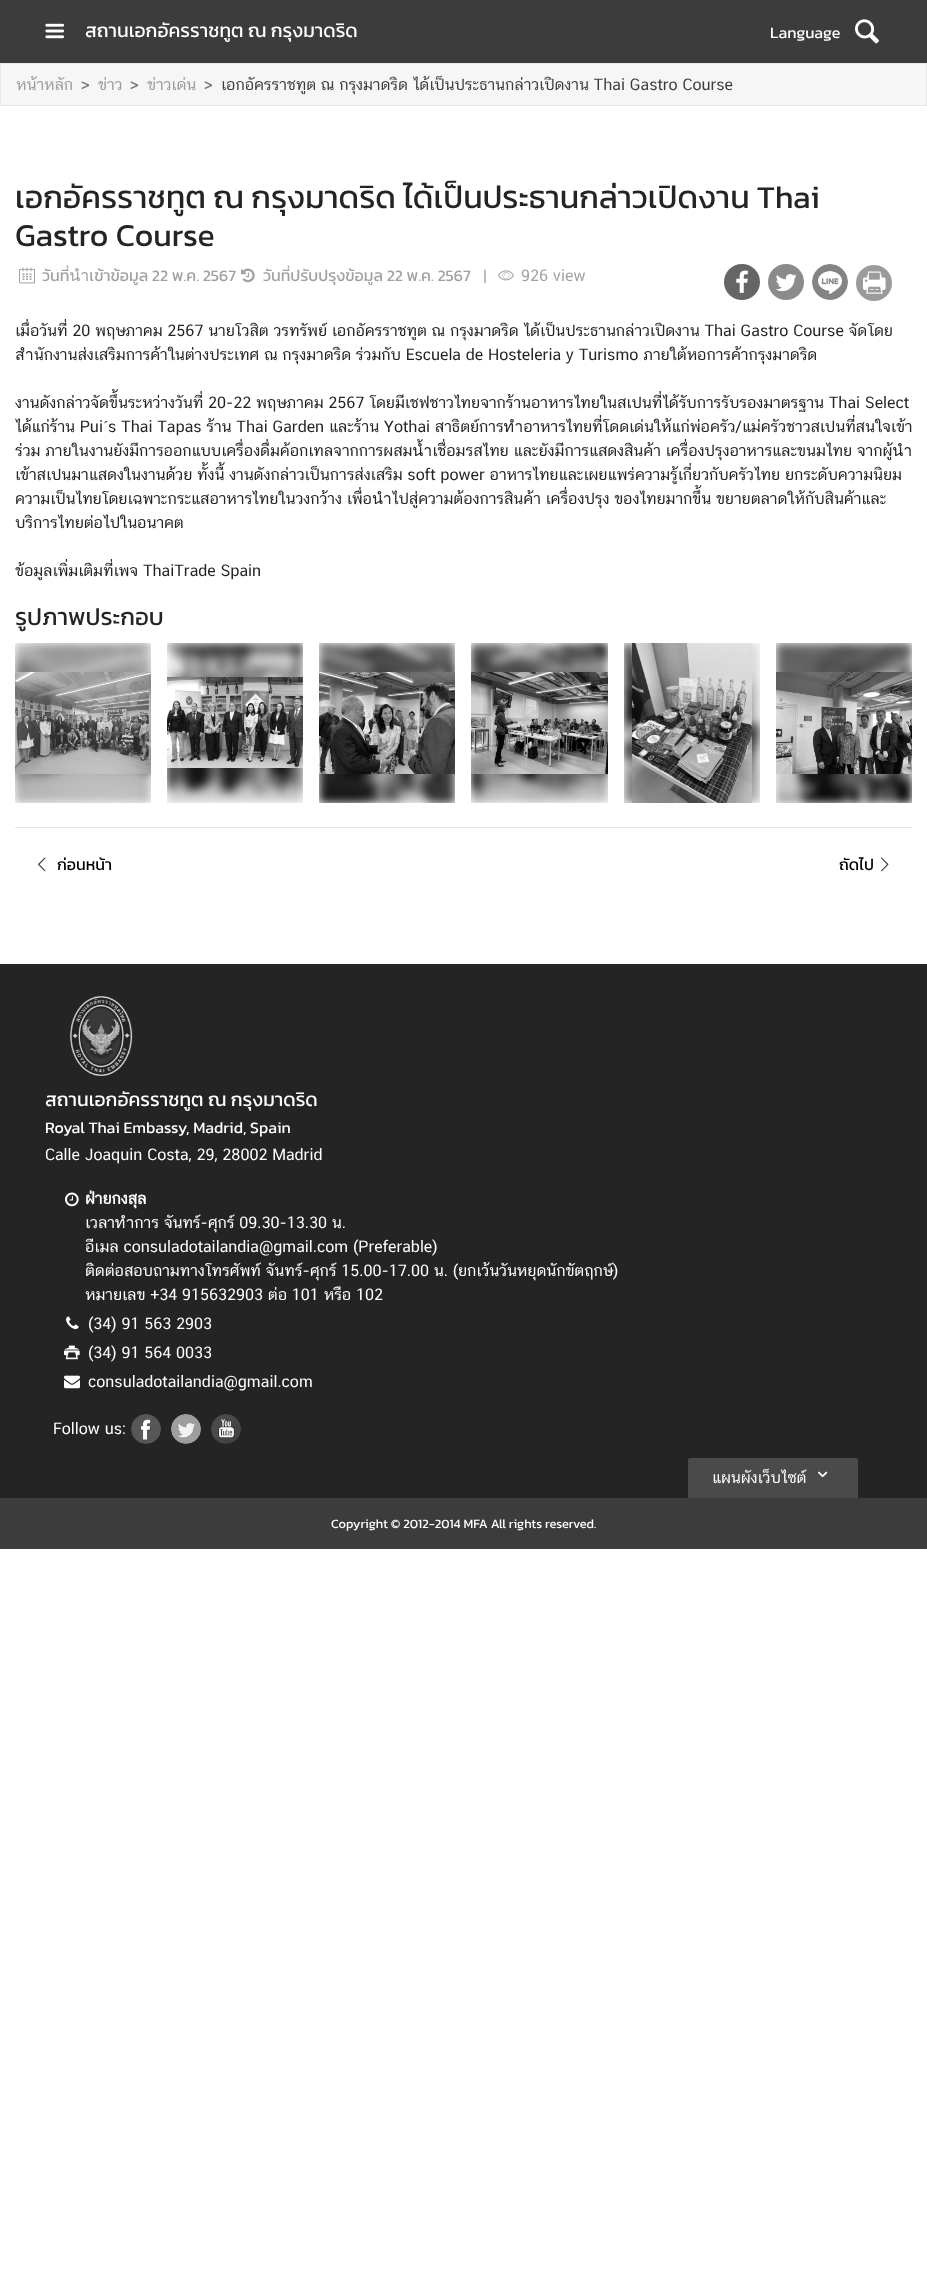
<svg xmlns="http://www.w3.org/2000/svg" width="927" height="2280">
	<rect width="100%" height="100%" fill="#FFFFFF" />
	<rect x="0" y="0" width="927" height="63" fill="#3C3C3C" />
	<image x="45" y="23" width="20" height="16" href="assets/img1.png" />
	<text x="85" y="37" font-family="Kanit" font-size="19.25" fill="#FFFFFF">สถานเอกอัครราชทูต ณ กรุงมาดริด</text>
	<text x="770" y="38" font-family="Kanit" font-size="16" fill="#FFFFFF">Language</text>
	<image x="855" y="19" width="24" height="25" href="assets/img2.png" />
	<rect x="0.5" y="63.5" width="926" height="42" fill="#F6F6F6" stroke="#E8E8E8" />
	<text x="16" y="90" font-family="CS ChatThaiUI" font-size="16" fill="#9B9B9B">หน้าหลัก</text>
	<text x="81" y="90" font-family="Kanit" font-size="16" fill="#747474">&gt;</text>
	<text x="98" y="90" font-family="CS ChatThaiUI" font-size="16" fill="#9B9B9B">ข่าว</text>
	<text x="130" y="90" font-family="Kanit" font-size="16" fill="#747474">&gt;</text>
	<text x="147" y="90" font-family="CS ChatThaiUI" font-size="16" fill="#9B9B9B">ข่าวเด่น</text>
	<text x="204" y="90" font-family="Kanit" font-size="16" fill="#747474">&gt;</text>
	<text x="221" y="90" font-family="CS ChatThaiUI" font-size="16" fill="#3C3C3C">เอกอัครราชทูต ณ กรุงมาดริด ได้เป็นประธานกล่าวเปิดงาน Thai Gastro Course</text>
	<g font-family="Kanit" font-size="32" fill="#242424">
		<text x="15" y="208">เอกอัครราชทูต ณ กรุงมาดริด ได้เป็นประธานกล่าวเปิดงาน Thai</text>
		<text x="15" y="246">Gastro Course</text>
	</g>
	<image x="19" y="267" width="16" height="17" href="assets/img3.png" />
	<text x="42" y="281" font-family="Kanit" font-size="16" fill="#A1A1A1">วันที่นำเข้าข้อมูล 22 พ.ค. 2567</text>
	<image x="241" y="268" width="14" height="15" href="assets/img4.png" />
	<text x="263" y="281" font-family="Kanit" font-size="16" fill="#A1A1A1">วันที่ปรับปรุงข้อมูล 22 พ.ค. 2567</text>
	<text x="483" y="281" font-family="CS ChatThaiUI" font-size="16" fill="#A1A1A1">|</text>
	<image x="498" y="270" width="16" height="11" href="assets/img5.png" />
	<text x="521" y="281" font-family="CS ChatThaiUI" font-size="16" fill="#A1A1A1">926 view</text>
	<circle cx="742" cy="282" r="18" fill="#656565" />
	<image x="736" y="270" width="12" height="23" href="assets/img6.png" />
	<circle cx="786" cy="282" r="18" fill="#8B8B8B" />
	<image x="775" y="274" width="22" height="18" href="assets/img7.png" />
	<circle cx="830" cy="282" r="18" fill="#EFEFEF" />
	<image x="812" y="264" width="36" height="36" href="assets/img8.png" />
	<circle cx="874" cy="283" r="18" fill="#9B9B9B" />
	<image x="863" y="271" width="23" height="23" href="assets/img9.png" />
	<g font-family="CS ChatThaiUI" font-size="16" fill="#242424">
		<text x="15" y="336">เมื่อวันที่ 20 พฤษภาคม 2567 นายโวสิต วรทรัพย์ เอกอัครราชทูต ณ กรุงมาดริด ได้เป็นประธานกล่าวเปิดงาน Thai Gastro Course จัดโดย</text>
		<text x="15" y="360">สำนักงานส่งเสริมการค้าในต่างประเทศ ณ กรุงมาดริด ร่วมกับ Escuela de Hosteleria y Turismo ภายใต้หอการค้ากรุงมาดริด</text>
		<text x="15" y="408">งานดังกล่าวจัดขึ้นระหว่างวันที่ 20-22 พฤษภาคม 2567 โดยมีเชฟชาวไทยจากร้านอาหารไทยในสเปนที่ได้รับการรับรองมาตรฐาน Thai Select</text>
		<text x="15" y="432">ได้แก่ร้าน Pui</text>
	</g>
	<text x="103" y="432" font-family="Liberation Serif" font-size="16" fill="#242424">´</text>
	<g font-family="CS ChatThaiUI" font-size="16" fill="#242424">
		<text x="108" y="432">s Thai Tapas ร้าน Thai Garden และร้าน Yothai สาธิตย์การทำอาหารไทยที่โดดเด่นให้แก่พ่อครัว/แม่ครัวชาวสเปนที่สนใจเข้า</text>
		<text x="15" y="456">ร่วม ภายในงานยังมีการออกแบบเครื่องดื่มค้อกเทลจากการผสมน้ำเชื่อมรสไทย และยังมีการแสดงสินค้า เครื่องปรุงอาหารและขนมไทย จากผู้นำ</text>
		<text x="15" y="480">เข้าสเปนมาแสดงในงานด้วย ทั้งนี้ งานดังกล่าวเป็นการส่งเสริม soft power อาหารไทยและเผยแพร่ความรู้เกี่ยวกับครัวไทย ยกระดับความนิยม</text>
		<text x="15" y="504">ความเป็นไทยโดยเฉพาะกระแสอาหารไทยในวงกว้าง เพื่อนำไปสู่ความต้องการสินค้า เครื่องปรุง ของไทยมากขึ้น ขยายตลาดให้กับสินค้าและ</text>
		<text x="15" y="528">บริการไทยต่อไปในอนาคต</text>
		<text x="15" y="576">ข้อมูลเพิ่มเติมที่เพจ ThaiTrade Spain</text>
	</g>
	<text x="15" y="625" font-family="Kanit" font-size="24" fill="#242424">รูปภาพประกอบ</text>
	<image x="15" y="643" width="136" height="160" href="assets/img10.png" />
	<image x="15" y="672" width="136" height="102" href="assets/img11.png" />
	<image x="167" y="643" width="136" height="160" href="assets/img12.png" />
	<image x="167" y="677" width="136" height="91" href="assets/img13.png" />
	<image x="319" y="643" width="136" height="160" href="assets/img14.png" />
	<image x="319" y="672" width="136" height="102" href="assets/img15.png" />
	<image x="471" y="643" width="137" height="160" href="assets/img16.png" />
	<image x="471" y="672" width="137" height="102" href="assets/img17.png" />
	<image x="624" y="643" width="136" height="160" href="assets/img18.png" />
	<image x="632" y="643" width="120" height="160" href="assets/img19.png" />
	<image x="776" y="643" width="136" height="160" href="assets/img20.png" />
	<image x="776" y="672" width="136" height="102" href="assets/img21.png" />
	<rect x="15" y="827" width="897" height="1" fill="#E6E6E6" />
	<image x="38" y="857" width="8" height="15" href="assets/img22.png" />
	<g font-family="Kanit" font-size="16" fill="#000000">
		<text x="57" y="870">ก่อนหน้า</text>
		<text x="839" y="870">ถัดไป</text>
	</g>
	<image x="881" y="857" width="8" height="15" href="assets/img23.png" />
	<rect x="0" y="964" width="927" height="534" fill="#242424" />
	<image x="69" y="996" width="64" height="80" href="assets/img24.png" />
	<text x="45" y="1106" font-family="Kanit" font-size="19.25" fill="#FFFFFF">สถานเอกอัครราชทูต ณ กรุงมาดริด</text>
	<text x="45" y="1133" font-family="Kanit" font-size="16" fill="#FFFFFF">Royal Thai Embassy, Madrid, Spain</text>
	<text x="45" y="1160" font-family="CS ChatThaiUI" font-size="16" fill="#FFFFFF">Calle Joaquin Costa, 29, 28002 Madrid</text>
	<image x="65" y="1192" width="14" height="15" href="assets/img25.png" />
	<text x="85" y="1204" font-family="CS ChatThaiUI" font-size="16" font-weight="700" fill="#FFFFFF">ฝ่ายกงสุล</text>
	<g font-family="CS ChatThaiUI" font-size="16" fill="#FFFFFF">
		<text x="85" y="1228">เวลาทำการ จันทร์-ศุกร์ 09.30-13.30 น.</text>
		<text x="85" y="1252">อีเมล consuladotailandia@gmail.com (Preferable)</text>
		<text x="85" y="1276">ติดต่อสอบถามทางโทรศัพท์ จันทร์-ศุกร์ 15.00-17.00 น. (ยกเว้นวันหยุดนักขัตฤกษ์)</text>
		<text x="85" y="1300">หมายเลข +34 915632903 ต่อ 101 หรือ 102</text>
	</g>
	<image x="66" y="1316" width="13" height="14" href="assets/img26.png" />
	<text x="88" y="1329" font-family="CS ChatThaiUI" font-size="16" fill="#FFFFFF">(34) 91 563 2903</text>
	<image x="64" y="1345" width="16" height="15" href="assets/img27.png" />
	<text x="88" y="1358" font-family="CS ChatThaiUI" font-size="16" fill="#FFFFFF">(34) 91 564 0033</text>
	<image x="64" y="1375" width="16" height="14" href="assets/img28.png" />
	<g font-family="CS ChatThaiUI" font-size="16" fill="#FFFFFF">
		<text x="88" y="1387">consuladotailandia@gmail.com</text>
		<text x="53" y="1434">Follow us:</text>
	</g>
	<image x="131" y="1414" width="30" height="30" href="assets/img29.png" />
	<image x="171" y="1414" width="30" height="30" href="assets/img30.png" />
	<image x="211" y="1414" width="30" height="30" href="assets/img31.png" />
	<path d="M690 1458H856C857 1458 858 1459 858 1460V1498H688V1460C688 1459 689 1458 690 1458Z" fill="#4A4A4A" />
	<text x="712" y="1483" font-family="CS ChatThaiUI" font-size="16" fill="#FFFFFF">แผนผังเว็บไซต์</text>
	<image x="818" y="1471" width="10" height="7" href="assets/img32.png" />
	<rect x="0" y="1498" width="927" height="51" fill="#3C3C3C" />
	<text x="331" y="1528" font-family="Kanit" font-size="12.8" fill="#FFFFFF">Copyright © 2012-2014 MFA All rights reserved.</text>
</svg>
